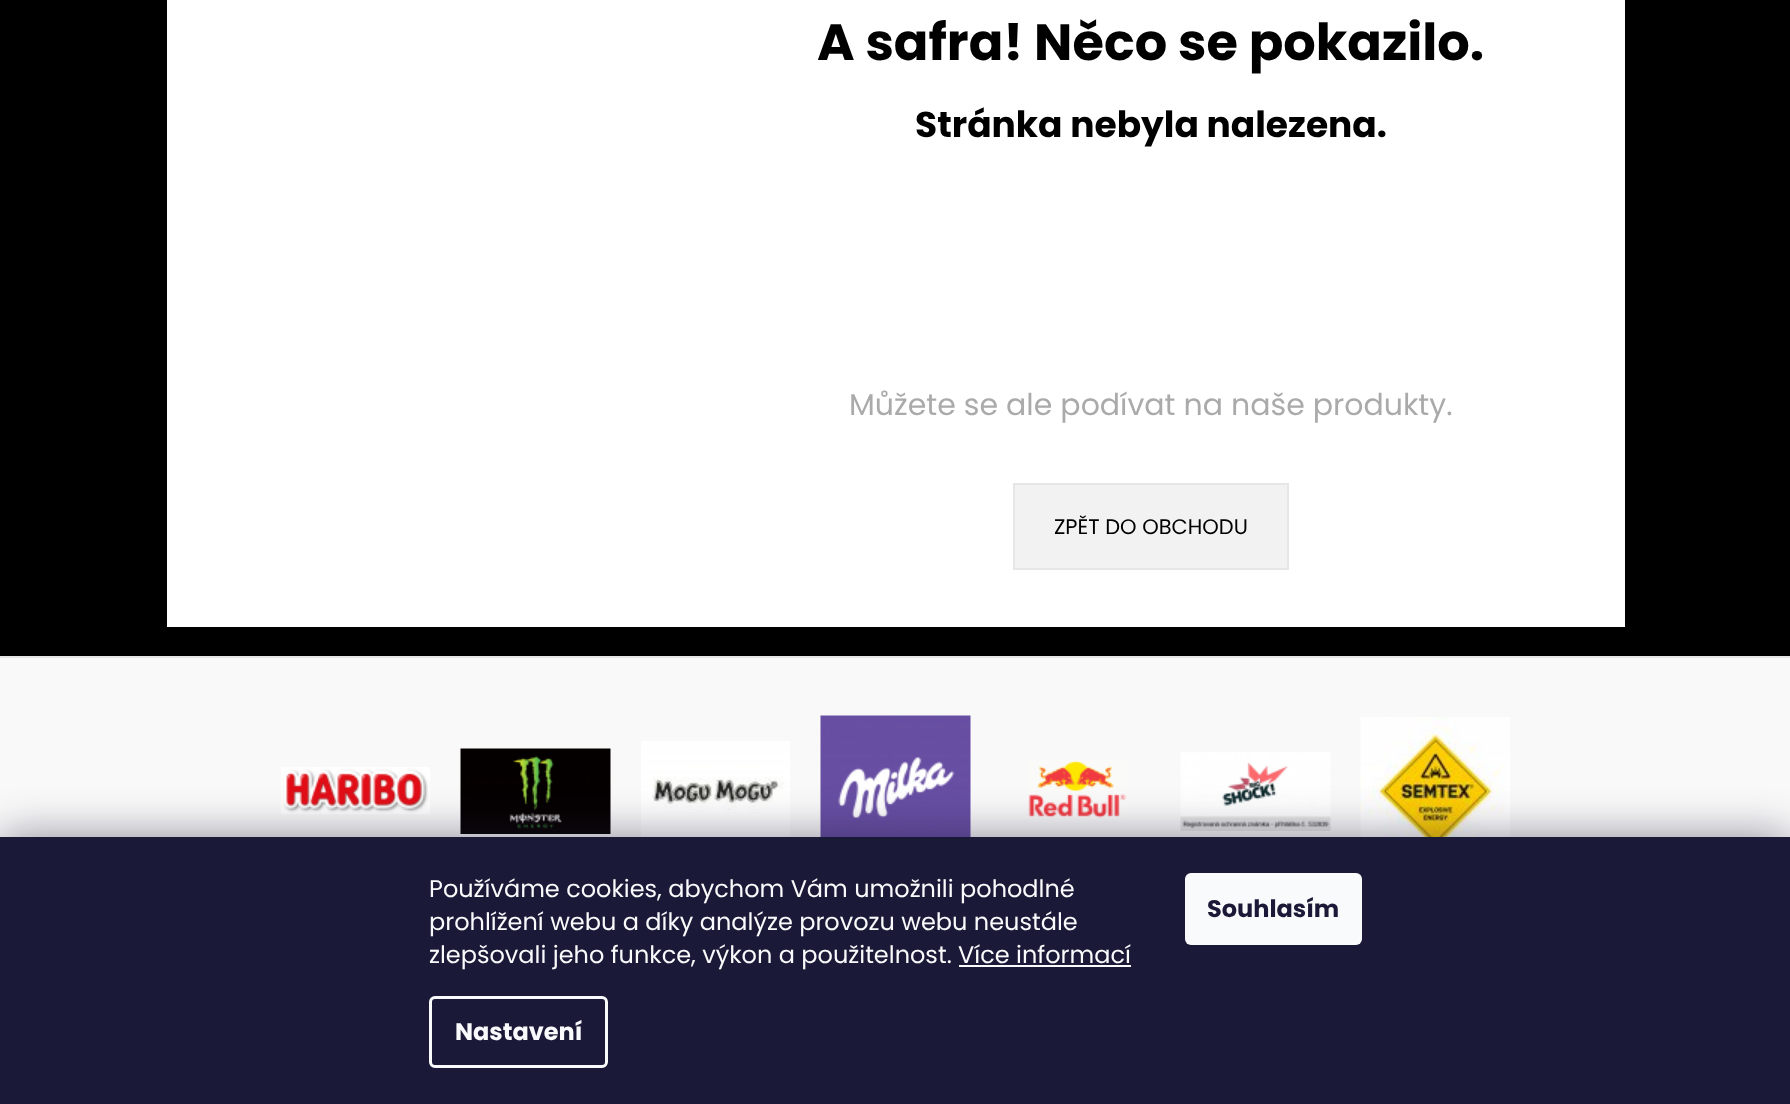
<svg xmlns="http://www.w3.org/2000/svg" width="1790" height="1104">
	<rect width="100%" height="100%" fill="#000000" />
	<rect x="167" y="0" width="1458" height="627" fill="#FFFFFF" />
	<text x="817" y="60" font-family="Poppins" font-size="51" font-weight="700" fill="#000000">A safra! Něco se pokazilo.</text>
	<text x="915" y="137" font-family="Poppins" font-size="36" font-weight="700" fill="#000000">Stránka nebyla nalezena.</text>
	<text x="849" y="415" font-family="Poppins" font-size="30" fill="#AAAAAA">Můžete se ale podívat na naše produkty.</text>
	<rect x="1014" y="484" width="274" height="85" fill="#F2F2F2" stroke="#E6E6E6" stroke-width="2" />
	<text x="1054" y="534" font-family="Poppins" font-size="21" fill="#000000">ZPĚT DO OBCHODU</text>
	<rect x="0" y="658" width="1790" height="179" fill="#F9F9F9" />
	<rect x="0" y="656" width="1790" height="2" fill="#E6E6E6" />
	<image x="281" y="767" width="149" height="47" href="assets/img1.png" />
	<image x="460" y="748" width="151" height="86" href="assets/img2.png" />
	<image x="641" y="741" width="149" height="96" href="assets/img3.png" />
	<image x="820" y="715" width="151" height="122" href="assets/img4.png" />
	<image x="1028" y="760" width="99" height="58" href="assets/img5.png" />
	<image x="1180" y="752" width="151" height="79" href="assets/img6.png" />
	<image x="1360" y="717" width="150" height="120" href="assets/img7.png" />
	<rect x="0" y="837" width="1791" height="267" fill="#1B1939" fill-opacity="0.5" filter="blur(22.5px)" />
	<rect x="0" y="837" width="1790" height="267" fill="#1A1937" />
	<g font-family="Poppins" font-size="24" fill="#F8FAFB">
		<text x="429" y="897">Používáme cookies, abychom Vám umožnili pohodlné</text>
		<text x="429" y="930">prohlížení webu a díky analýze provozu webu neustále</text>
		<text x="429" y="963">zlepšovali jeho funkce, výkon a použitelnost. Více informací</text>
	</g>
	<rect x="959" y="965" width="172" height="2" fill="#F8FAFB" />
	<rect x="430.5" y="997.5" width="176" height="69" rx="4.5" fill="none" stroke="#F8FAFB" stroke-width="3" />
	<text x="455" y="1040" font-family="Poppins" font-size="24" font-weight="700" fill="#F8FAFB">Nastavení</text>
	<rect x="1185" y="873" width="177" height="72" rx="6" fill="#F8FAFB" />
	<text x="1207" y="917" font-family="Poppins" font-size="24" font-weight="700" fill="#1A1937">Souhlasím</text>
</svg>
